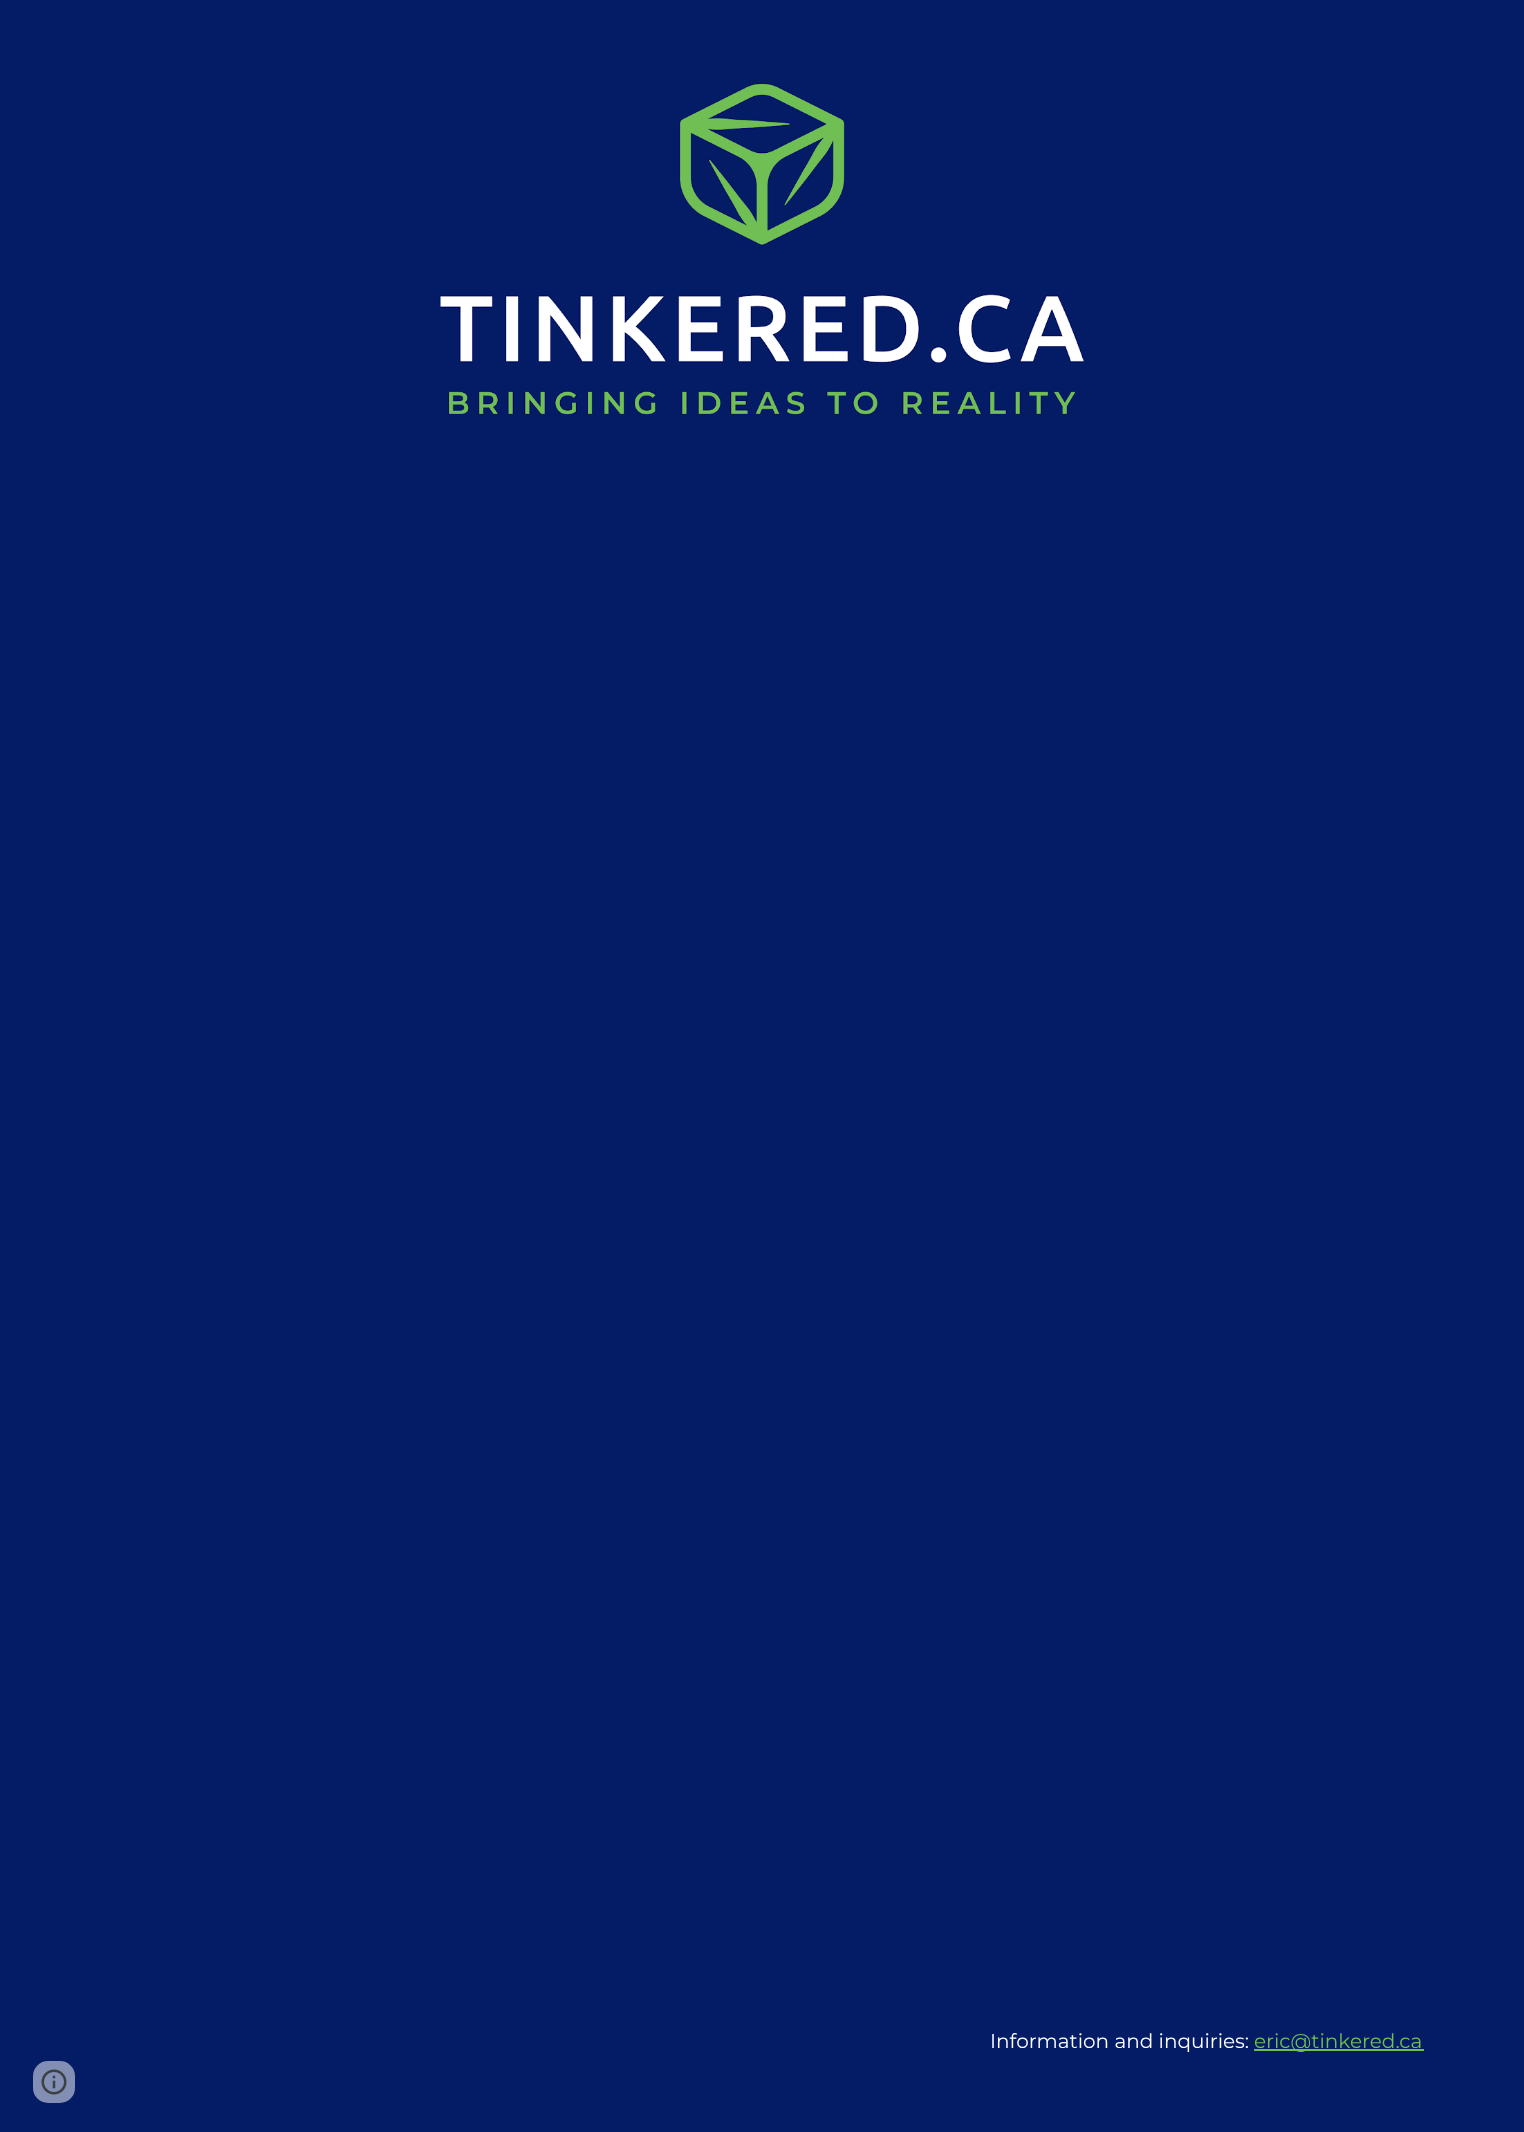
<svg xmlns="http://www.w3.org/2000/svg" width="1524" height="2132">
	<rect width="100%" height="100%" fill="#041C66" />
	<image x="439" y="83" width="645" height="332" href="assets/img1.png" />
	<text x="990" y="2048" font-family="Montserrat" font-size="20" fill="#FFFFFF">Information and inquiries:</text>
	<rect x="1254" y="2049" width="170" height="2" fill="#70BF54" />
	<text x="1254" y="2048" font-family="Montserrat" font-size="20" fill="#70BF54">eric@tinkered.ca</text>
	<rect x="33" y="2061" width="42" height="42" rx="15" fill="#828EB3" />
	<image x="41" y="2069" width="26" height="26" href="assets/img2.png" />
</svg>
